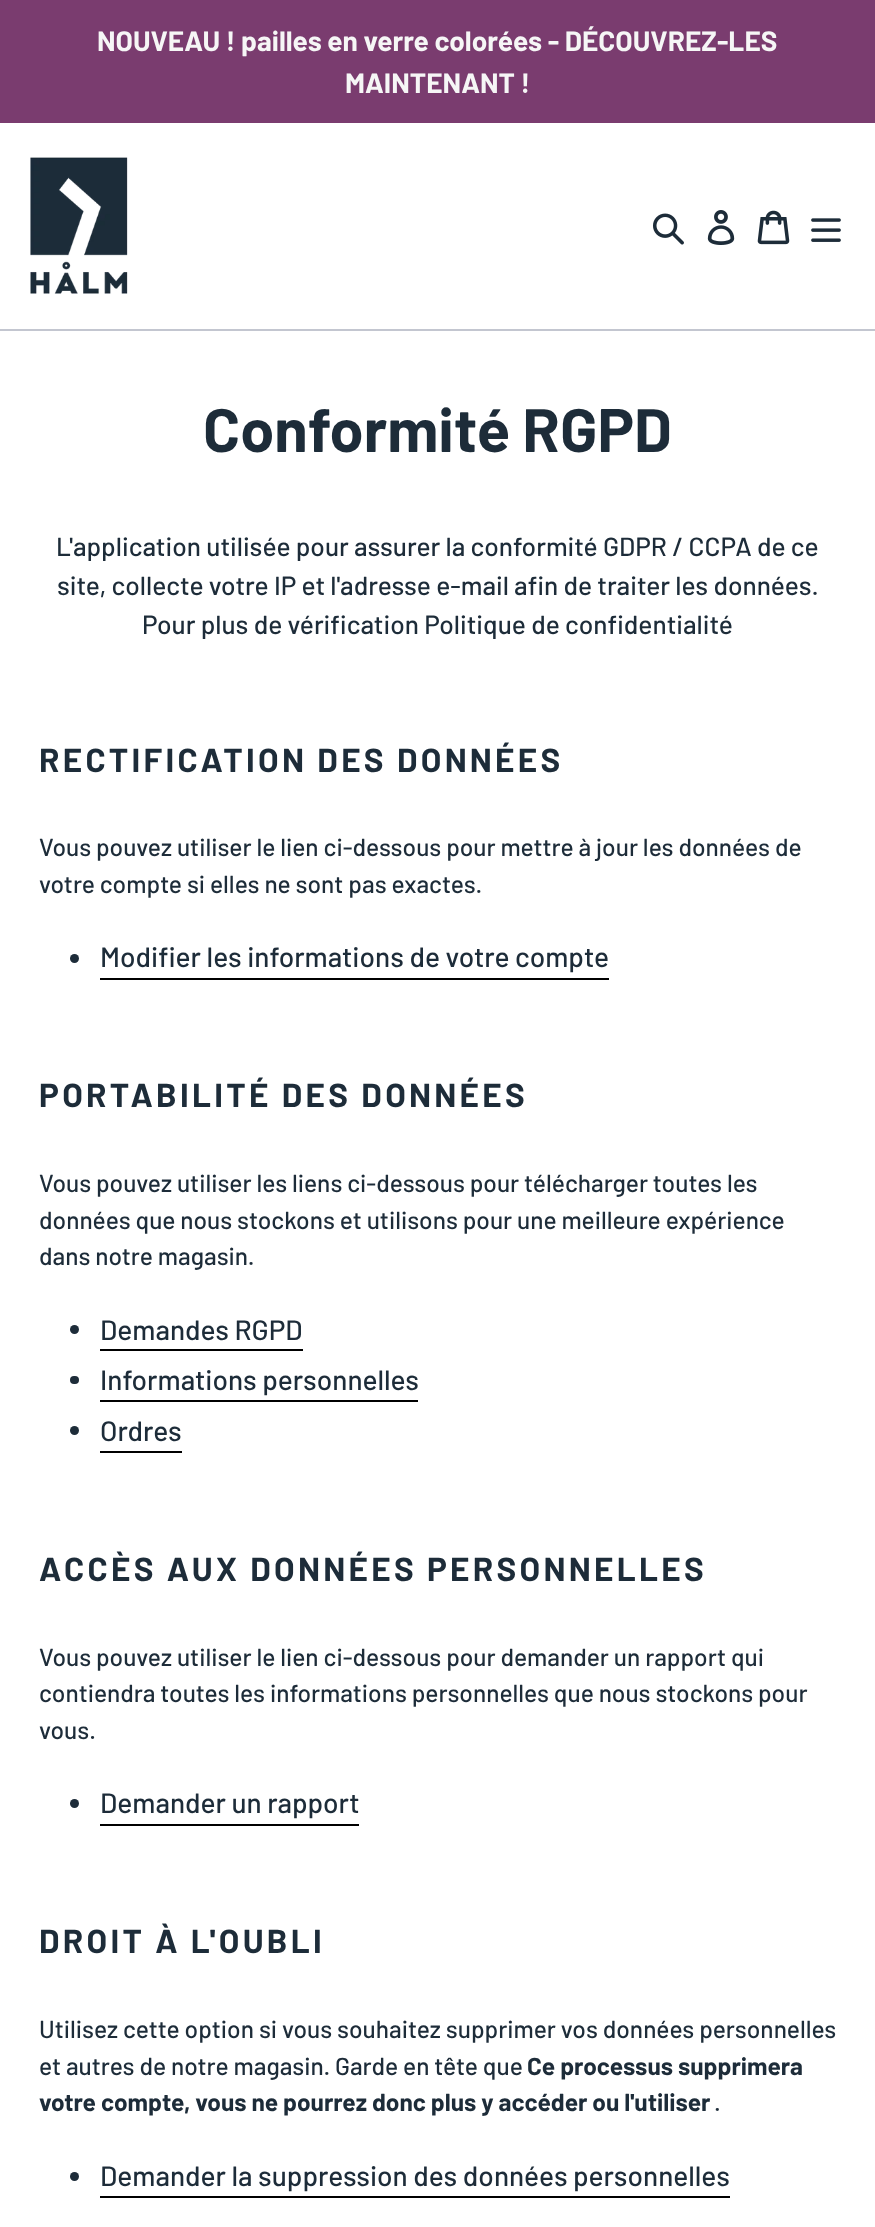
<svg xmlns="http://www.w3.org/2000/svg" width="875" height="2227">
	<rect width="100%" height="100%" fill="#FFFFFF" />
	<rect x="0" y="0" width="875" height="123" fill="#7A3C6F" />
	<g font-family="Barlow" font-size="28" font-weight="700" fill="#F6F6F6">
		<text x="97" y="51">NOUVEAU ! pailles en verre colorées - DÉCOUVREZ-LES</text>
		<text x="345" y="93">MAINTENANT !</text>
	</g>
	<rect x="0" y="329" width="875" height="2" fill="#C3C6D0" />
	<image x="30" y="157" width="98" height="137" href="assets/img1.png" />
	<image x="653" y="213" width="31" height="32" href="assets/img2.png" />
	<image x="707" y="210" width="28" height="35" href="assets/img3.png" />
	<image x="757" y="210" width="33" height="35" href="assets/img4.png" />
	<image x="811" y="218" width="30" height="24" href="assets/img5.png" />
	<text x="203" y="452" font-family="Barlow" font-size="61.25" font-weight="700" fill="#1D2C39">Conformité RGPD</text>
	<g font-family="Barlow" font-size="26.25" font-weight="500" fill="#1D2C39">
		<text x="56" y="556">L'application utilisée pour assurer la conformité GDPR / CCPA de ce</text>
		<text x="57" y="595">site, collecte votre IP et l'adresse e-mail afin de traiter les données.</text>
		<text x="142" y="634">Pour plus de vérification Politique de confidentialité</text>
	</g>
	<text x="39" y="772" font-family="Barlow" font-size="33.25" font-weight="700" letter-spacing="3.3" fill="#1D2C39">RECTIFICATION DES DONNÉES</text>
	<g font-family="Barlow" font-size="24.5" font-weight="500" fill="#1D2C39">
		<text x="39" y="856">Vous pouvez utiliser le lien ci-dessous pour mettre à jour les données de</text>
		<text x="39" y="893">votre compte si elles ne sont pas exactes.</text>
	</g>
	<circle cx="74.5" cy="958.5" r="4.5" fill="#1D2C39" />
	<rect x="100" y="978" width="509" height="2" fill="#000000" />
	<text x="100" y="967" font-family="Barlow" font-size="28" font-weight="500" fill="#1D2C39">Modifier les informations de votre compte</text>
	<text x="39" y="1107" font-family="Barlow" font-size="33.25" font-weight="700" letter-spacing="3.3" fill="#1D2C39">PORTABILITÉ DES DONNÉES</text>
	<g font-family="Barlow" font-size="24.5" font-weight="500" fill="#1D2C39">
		<text x="39" y="1192">Vous pouvez utiliser les liens ci-dessous pour télécharger toutes les</text>
		<text x="39" y="1229">données que nous stockons et utilisons pour une meilleure expérience</text>
		<text x="39" y="1265">dans notre magasin.</text>
	</g>
	<circle cx="74.5" cy="1329.5" r="4.5" fill="#1D2C39" />
	<rect x="100" y="1349" width="203" height="2" fill="#000000" />
	<text x="100" y="1340" font-family="Barlow" font-size="28" font-weight="500" fill="#1D2C39">Demandes RGPD</text>
	<rect x="70" y="1376" width="9" height="8" rx="4" fill="#1D2C39" />
	<rect x="100" y="1400" width="318" height="2" fill="#000000" />
	<text x="100" y="1390" font-family="Barlow" font-size="28" font-weight="500" fill="#1D2C39">Informations personnelles</text>
	<circle cx="74.5" cy="1430.5" r="4.5" fill="#1D2C39" />
	<rect x="100" y="1451" width="82" height="2" fill="#000000" />
	<text x="100" y="1441" font-family="Barlow" font-size="28" font-weight="500" fill="#1D2C39">Ordres</text>
	<text x="39" y="1581" font-family="Barlow" font-size="33.25" font-weight="700" letter-spacing="3.3" fill="#1D2C39">ACCÈS AUX DONNÉES PERSONNELLES</text>
	<g font-family="Barlow" font-size="24.5" font-weight="500" fill="#1D2C39">
		<text x="39" y="1666">Vous pouvez utiliser le lien ci-dessous pour demander un rapport qui</text>
		<text x="39" y="1702">contiendra toutes les informations personnelles que nous stockons pour</text>
		<text x="39" y="1739">vous.</text>
	</g>
	<circle cx="74.5" cy="1803.5" r="4.5" fill="#1D2C39" />
	<rect x="100" y="1824" width="259" height="2" fill="#000000" />
	<text x="100" y="1813" font-family="Barlow" font-size="28" font-weight="500" fill="#1D2C39">Demander un rapport</text>
	<text x="39" y="1953" font-family="Barlow" font-size="33.25" font-weight="700" letter-spacing="3.3" fill="#1D2C39">DROIT À L'OUBLI</text>
	<g font-family="Barlow" font-size="24.5" font-weight="500" fill="#1D2C39">
		<text x="39" y="2038">Utilisez cette option si vous souhaitez supprimer vos données personnelles</text>
		<text x="39" y="2075">et autres de notre magasin. Garde en tête que</text>
	</g>
	<g font-family="Barlow" font-size="24.5" font-weight="700" fill="#1D2C39">
		<text x="527" y="2075">Ce processus supprimera</text>
		<text x="39" y="2111">votre compte, vous ne pourrez donc plus y accéder ou l'utiliser</text>
	</g>
	<text x="714" y="2111" font-family="Barlow" font-size="24.5" font-weight="500" fill="#1D2C39">.</text>
	<circle cx="74.5" cy="2176.5" r="4.5" fill="#1D2C39" />
	<rect x="100" y="2196" width="630" height="2" fill="#000000" />
	<text x="100" y="2186" font-family="Barlow" font-size="28" font-weight="500" fill="#1D2C39">Demander la suppression des données personnelles</text>
</svg>
